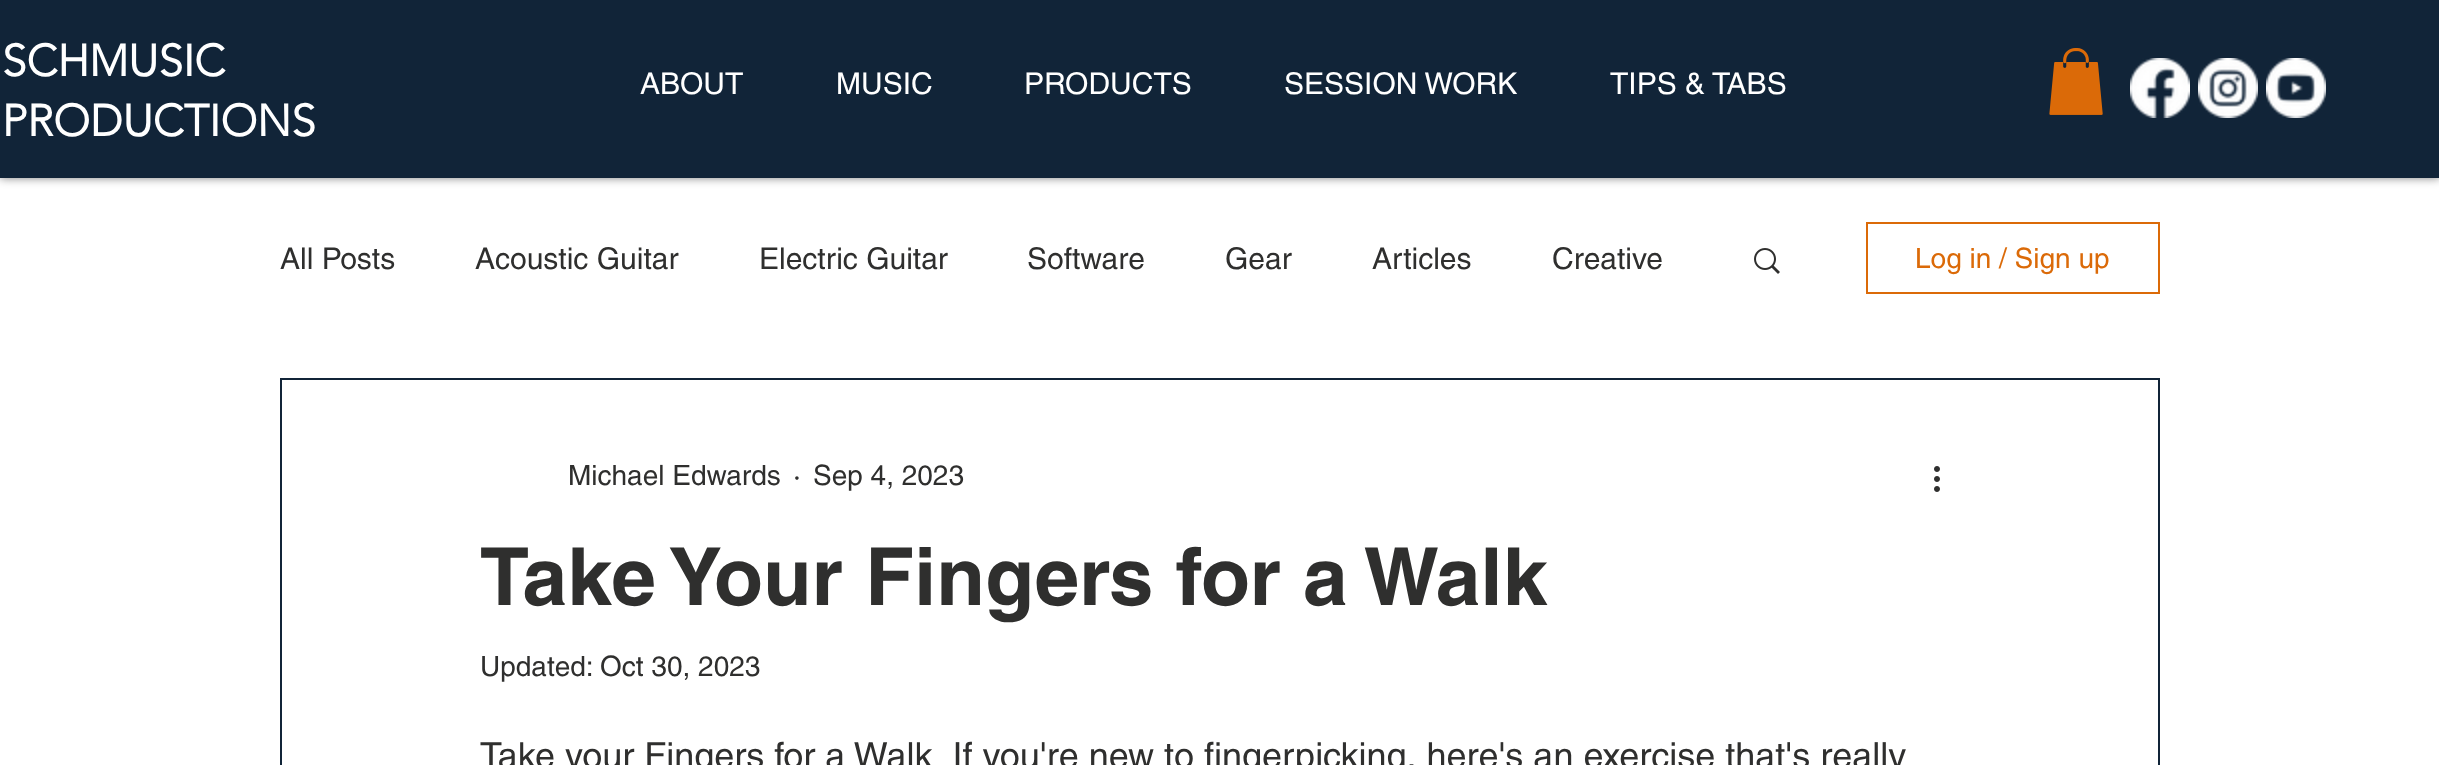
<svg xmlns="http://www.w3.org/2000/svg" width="2439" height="765">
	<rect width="100%" height="100%" fill="#FFFFFF" />
	<rect x="0" y="0" width="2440" height="178" fill="#000000" fill-opacity="0.5" filter="blur(5px)" />
	<rect x="0" y="0" width="2439" height="178" fill="#112438" />
	<g font-family="'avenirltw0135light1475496'" font-size="44" font-weight="700" fill="#FFFFFF">
		<text x="2" y="76">SCHMUSIC</text>
		<text x="2" y="136">PRODUCTIONS</text>
	</g>
	<g font-family="helvetica" font-size="30" fill="#FFFFFF">
		<text x="640" y="94">ABOUT</text>
		<text x="836" y="94">MUSIC</text>
		<text x="1024" y="94">PRODUCTS</text>
		<text x="1284" y="94">SESSION WORK</text>
		<text x="1610" y="94">TIPS &amp; TABS</text>
	</g>
	<image x="2049" y="48" width="54" height="67" href="assets/img1.png" />
	<image x="2130" y="58" width="60" height="60" href="assets/img2.png" />
	<image x="2198" y="58" width="60" height="60" href="assets/img3.png" />
	<image x="2266" y="58" width="60" height="60" href="assets/img4.png" />
	<g font-family="helvetica" font-size="30" fill="#2F2F2E">
		<text x="280" y="269">All Posts</text>
		<text x="475" y="269">Acoustic Guitar</text>
		<text x="759" y="269">Electric Guitar</text>
		<text x="1027" y="269">Software</text>
		<text x="1225" y="269">Gear</text>
		<text x="1372" y="269">Articles</text>
		<text x="1552" y="269">Creative</text>
	</g>
	<image x="1754" y="248" width="26" height="26" href="assets/img5.png" />
	<rect x="1867" y="223" width="292" height="70" fill="none" stroke="#DB6A08" stroke-width="2" />
	<text x="1915" y="268" font-family="helvetica" font-size="28" fill="#DB6A08">Log in / Sign up</text>
	<rect x="281" y="379" width="1878" height="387" fill="none" stroke="#112438" stroke-width="2" />
	<g font-family="helvetica" font-size="28" fill="#2F2F2E">
		<text x="568" y="485">Michael Edwards</text>
		<text x="793" y="485">·</text>
		<text x="813" y="485">Sep 4, 2023</text>
	</g>
	<image x="1934" y="466" width="6" height="26" href="assets/img6.png" />
	<text x="480" y="605" font-family="helvetica" font-size="80" font-weight="700" fill="#2F2F2E">Take Your Fingers for a Walk</text>
	<text x="480" y="676" font-family="helvetica" font-size="28" fill="#2F2F2E">Updated: Oct 30, 2023</text>
	<text x="480" y="768" font-family="helvetica" font-size="36" fill="#2F2F2E" xml:space="preserve">Take your Fingers for a Walk  If you're new to fingerpicking, here's an exercise that's really</text>
</svg>
